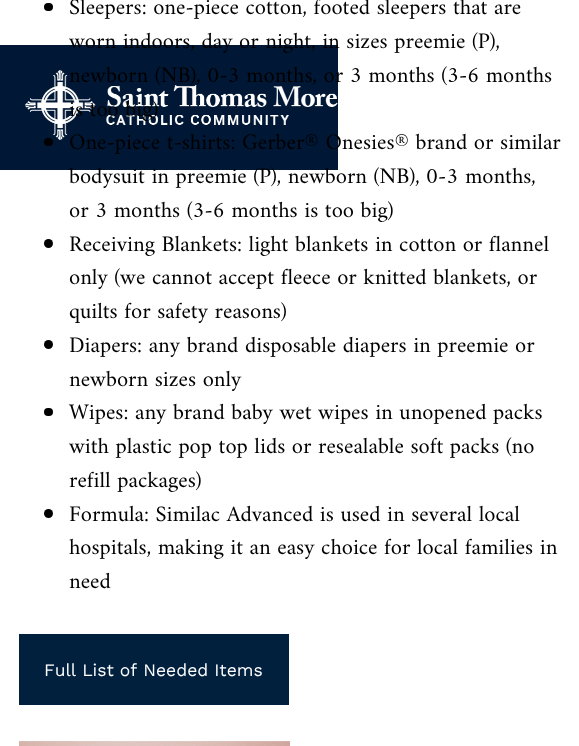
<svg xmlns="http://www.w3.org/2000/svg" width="579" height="746">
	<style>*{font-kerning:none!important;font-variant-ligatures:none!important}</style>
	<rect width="100%" height="100%" fill="#FFFFFF" />
	<rect x="44" y="3" width="9" height="8" rx="4" fill="#000000" />
	<text x="69" y="14" font-family="Amiri" font-size="22.5" fill="#000000">Sleepers: one-piece cotton, footed sleepers that are</text>
	<rect x="0" y="45" width="338" height="125" fill="#001836" />
	<text x="69" y="48" font-family="Amiri" font-size="22.5" fill="#000000">worn indoors, day or night, in sizes preemie (P),</text>
	<image x="25" y="70" width="313" height="70" href="assets/img2.png" />
	<g font-family="Amiri" font-size="22.5" fill="#000000">
		<text x="69" y="82">newborn (NB), 0-3 months, or 3 months (3-6 months</text>
		<text x="69" y="116">is too big)</text>
	</g>
	<rect x="44" y="138" width="9" height="8" rx="4" fill="#000000" />
	<g font-family="Amiri" font-size="22.5" fill="#000000">
		<text x="69" y="149">One-piece t-shirts: Gerber® Onesies® brand or similar</text>
		<text x="69" y="183">bodysuit in preemie (P), newborn (NB), 0-3 months,</text>
		<text x="69" y="217">or 3 months (3-6 months is too big)</text>
	</g>
	<circle cx="48.5" cy="243.5" r="4.5" fill="#000000" />
	<g font-family="Amiri" font-size="22.5" fill="#000000">
		<text x="69" y="251">Receiving Blankets: light blankets in cotton or flannel</text>
		<text x="69" y="284">only (we cannot accept fleece or knitted blankets, or</text>
		<text x="69" y="318">quilts for safety reasons)</text>
	</g>
	<circle cx="48.5" cy="344.5" r="4.5" fill="#000000" />
	<g font-family="Amiri" font-size="22.5" fill="#000000">
		<text x="69" y="352">Diapers: any brand disposable diapers in preemie or</text>
		<text x="69" y="386">newborn sizes only</text>
	</g>
	<rect x="44" y="408" width="9" height="8" rx="4" fill="#000000" />
	<g font-family="Amiri" font-size="22.5" fill="#000000">
		<text x="69" y="419">Wipes: any brand baby wet wipes in unopened packs</text>
		<text x="69" y="453">with plastic pop top lids or resealable soft packs (no</text>
		<text x="69" y="487">refill packages)</text>
	</g>
	<circle cx="48.5" cy="513.5" r="4.5" fill="#000000" />
	<g font-family="Amiri" font-size="22.5" fill="#000000">
		<text x="69" y="521">Formula: Similac Advanced is used in several local</text>
		<text x="69" y="554">hospitals, making it an easy choice for local families in</text>
		<text x="69" y="588">need</text>
	</g>
	<rect x="19" y="634" width="270" height="71" fill="#00203E" />
	<text x="44" y="676" font-family="Work Sans" font-size="17.5" fill="#FFFFFF">Full List of Needed Items</text>
	<image x="19" y="741" width="271" height="5" href="assets/img1.png" />
</svg>
